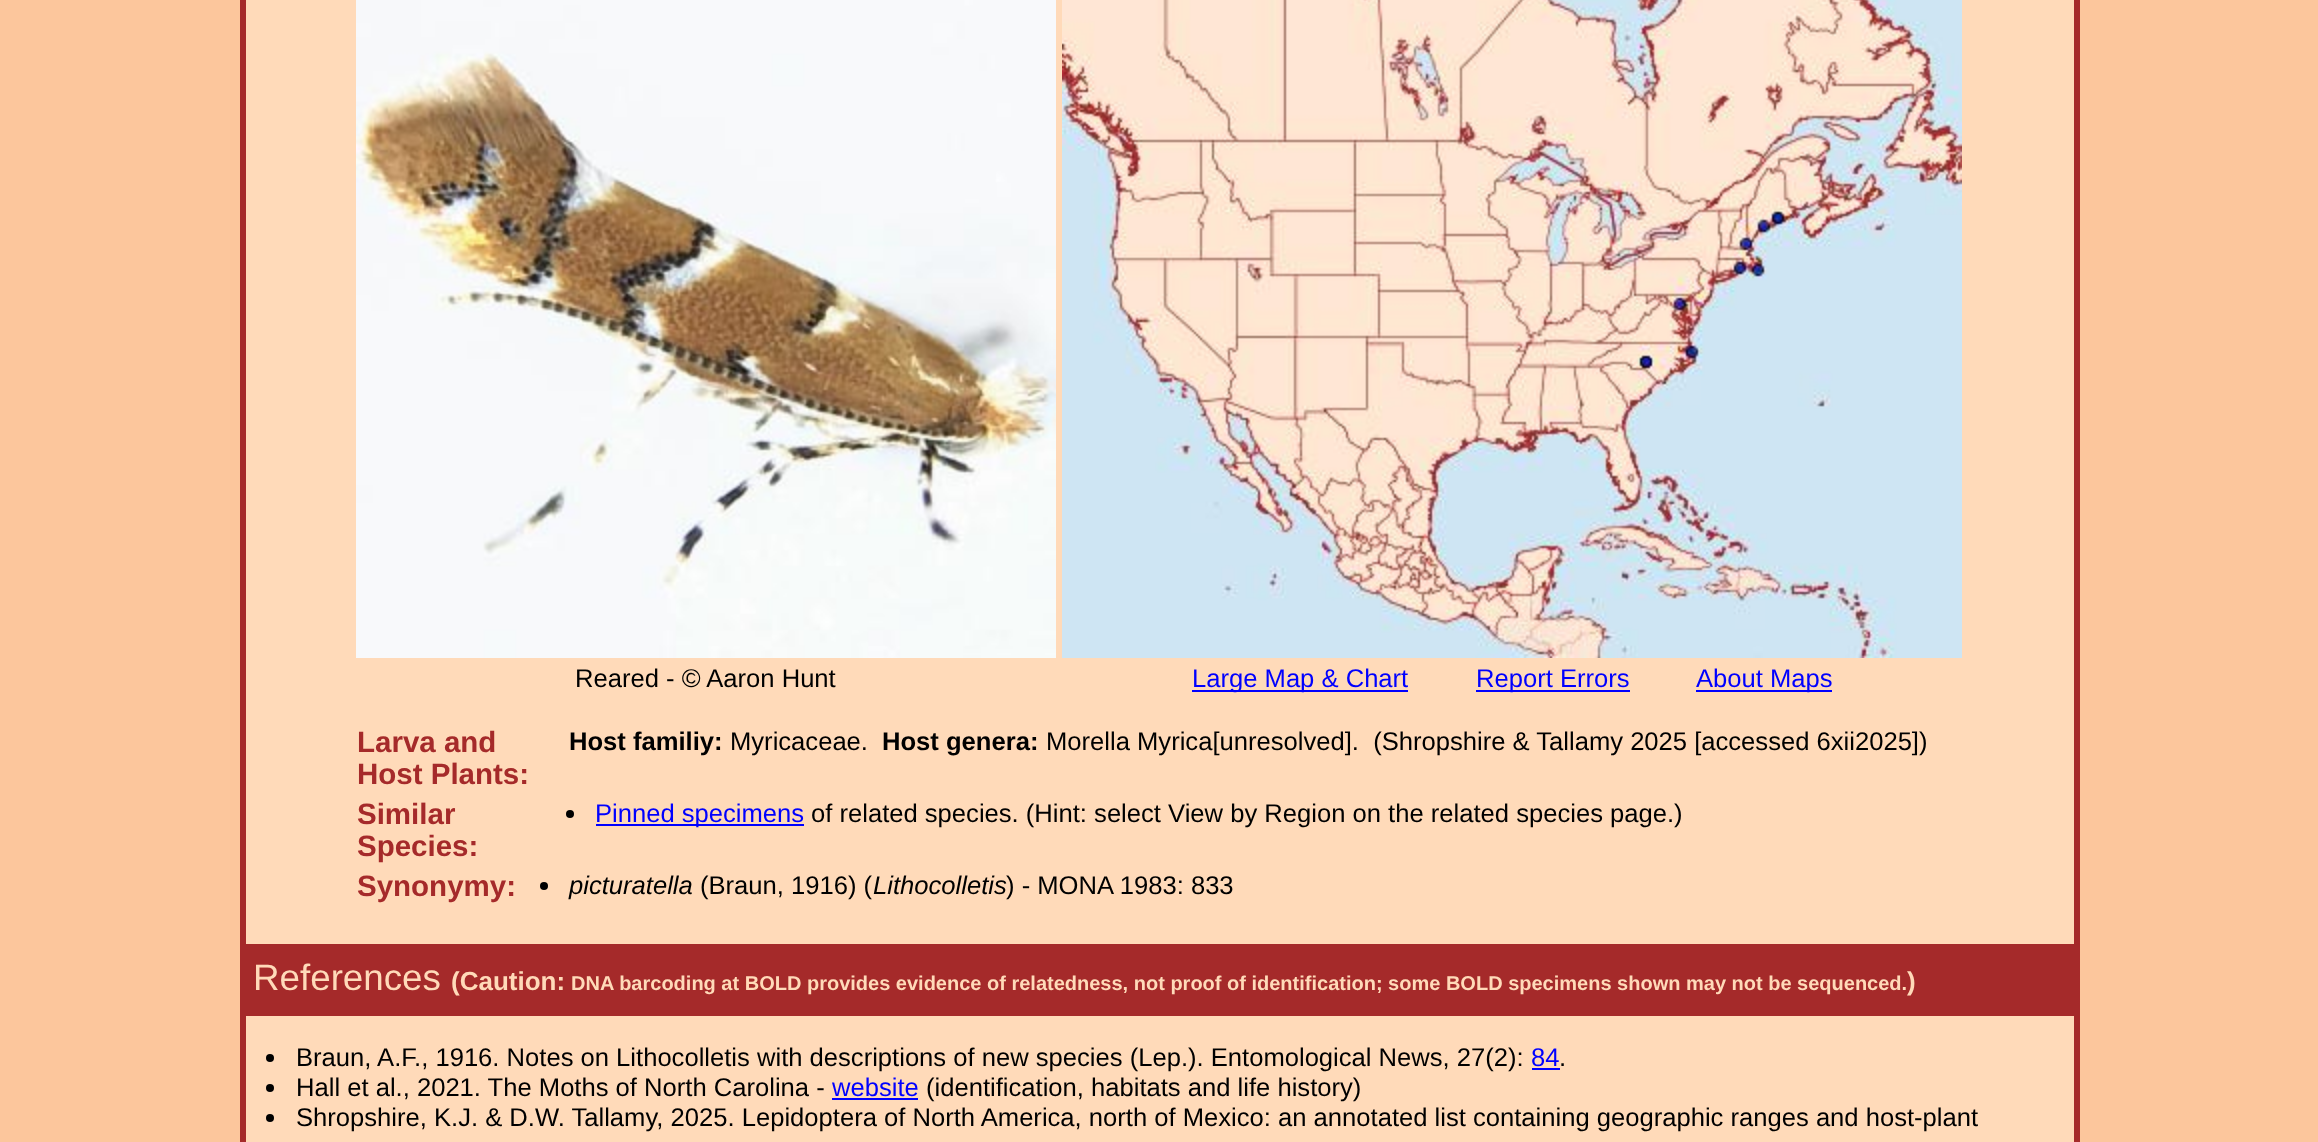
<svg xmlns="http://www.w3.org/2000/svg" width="2318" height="1142">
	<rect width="100%" height="100%" fill="#FCC69C" />
	<rect x="246" y="0" width="1828" height="1142" fill="#FFDAB9" />
	<rect x="2074" y="0" width="6" height="1142" fill="#A52A2A" />
	<rect x="240" y="0" width="6" height="1142" fill="#A52A2A" />
	<image x="356" y="0" width="700" height="658" href="assets/img1.png" />
	<text x="575" y="687" font-family="Liberation Sans" font-size="25.6" fill="#000000">Reared - © Aaron Hunt</text>
	<image x="1062" y="0" width="900" height="658" href="assets/img2.png" />
	<rect x="1192" y="690" width="216" height="2" fill="#0000FF" />
	<text x="1192" y="687" font-family="Liberation Sans" font-size="25.6" fill="#0000FF">Large Map &amp; Chart</text>
	<rect x="1476" y="690" width="154" height="2" fill="#0000FF" />
	<text x="1476" y="687" font-family="Liberation Sans" font-size="25.6" fill="#0000FF">Report Errors</text>
	<rect x="1696" y="690" width="136" height="2" fill="#0000FF" />
	<text x="1696" y="687" font-family="Liberation Sans" font-size="25.6" fill="#0000FF">About Maps</text>
	<g font-family="Liberation Sans" font-size="29.5" font-weight="700" fill="#A52A2A">
		<text x="357" y="752">Larva and</text>
		<text x="357" y="784">Host Plants:</text>
	</g>
	<text x="569" y="750" font-family="Liberation Sans" font-size="25.6" font-weight="700" fill="#000000">Host familiy:</text>
	<text x="730" y="750" font-family="Liberation Sans" font-size="25.6" fill="#000000">Myricaceae.</text>
	<text x="882" y="750" font-family="Liberation Sans" font-size="25.6" font-weight="700" fill="#000000">Host genera:</text>
	<text x="1046" y="750" font-family="Liberation Sans" font-size="25.6" fill="#000000" xml:space="preserve">Morella Myrica[unresolved].  (Shropshire &amp; Tallamy 2025 [accessed 6xii2025])</text>
	<g font-family="Liberation Sans" font-size="29.5" font-weight="700" fill="#A52A2A">
		<text x="357" y="824">Similar</text>
		<text x="357" y="856">Species:</text>
	</g>
	<circle cx="570" cy="814" r="4" fill="#000000" />
	<rect x="596" y="824" width="208" height="2" fill="#0000FF" />
	<text x="595" y="822" font-family="Liberation Sans" font-size="25.6" fill="#0000FF">Pinned specimens</text>
	<text x="811" y="822" font-family="Liberation Sans" font-size="25.6" fill="#000000">of related species. (Hint: select View by Region on the related species page.)</text>
	<text x="357" y="896" font-family="Liberation Sans" font-size="29.5" font-weight="700" fill="#A52A2A">Synonymy:</text>
	<circle cx="544" cy="886" r="4" fill="#000000" />
	<text x="569" y="894" font-family="Liberation Sans" font-size="25.6" font-style="italic" fill="#000000">picturatella</text>
	<text x="700" y="894" font-family="Liberation Sans" font-size="25.6" fill="#000000">(Braun, 1916) (</text>
	<text x="873" y="894" font-family="Liberation Sans" font-size="25.6" font-style="italic" fill="#000000">Lithocolletis</text>
	<text x="1006" y="894" font-family="Liberation Sans" font-size="25.6" fill="#000000">) - MONA 1983: 833</text>
	<rect x="246" y="944" width="1828" height="72" fill="#A52A2A" />
	<text x="253" y="990" font-family="Liberation Sans" font-size="36.75" fill="#FFDAB9">References</text>
	<text x="451" y="990" font-family="Liberation Sans" font-size="26" font-weight="700" fill="#FFDAB9">(Caution:</text>
	<text x="571" y="990" font-family="Liberation Sans" font-size="20" font-weight="700" fill="#FFDAB9">DNA barcoding at BOLD provides evidence of relatedness, not proof of identification; some BOLD specimens shown may not be sequenced.</text>
	<text x="1907" y="990" font-family="Liberation Sans" font-size="26" font-weight="700" fill="#FFDAB9">)</text>
	<circle cx="270" cy="1058" r="4" fill="#000000" />
	<text x="296" y="1066" font-family="Liberation Sans" font-size="25.6" fill="#000000">Braun, A.F., 1916. Notes on Lithocolletis with descriptions of new species (Lep.). Entomological News, 27(2):</text>
	<text x="1531" y="1066" font-family="Liberation Sans" font-size="25.6" fill="#0000FF">84</text>
	<rect x="1532" y="1068" width="28" height="2" fill="#0000FF" />
	<text x="1559" y="1066" font-family="Liberation Sans" font-size="25.6" fill="#000000">.</text>
	<circle cx="270" cy="1088" r="4" fill="#000000" />
	<text x="296" y="1096" font-family="Liberation Sans" font-size="25.6" fill="#000000">Hall et al., 2021. The Moths of North Carolina -</text>
	<text x="832" y="1096" font-family="Liberation Sans" font-size="25.6" fill="#0000FF">website</text>
	<rect x="832" y="1098" width="86" height="2" fill="#0000FF" />
	<text x="926" y="1096" font-family="Liberation Sans" font-size="25.6" fill="#000000">(identification, habitats and life history)</text>
	<circle cx="270" cy="1118" r="4" fill="#000000" />
	<text x="296" y="1126" font-family="Liberation Sans" font-size="25.6" fill="#000000">Shropshire, K.J. &amp; D.W. Tallamy, 2025. Lepidoptera of North America, north of Mexico: an annotated list containing geographic ranges and host-plant</text>
</svg>
